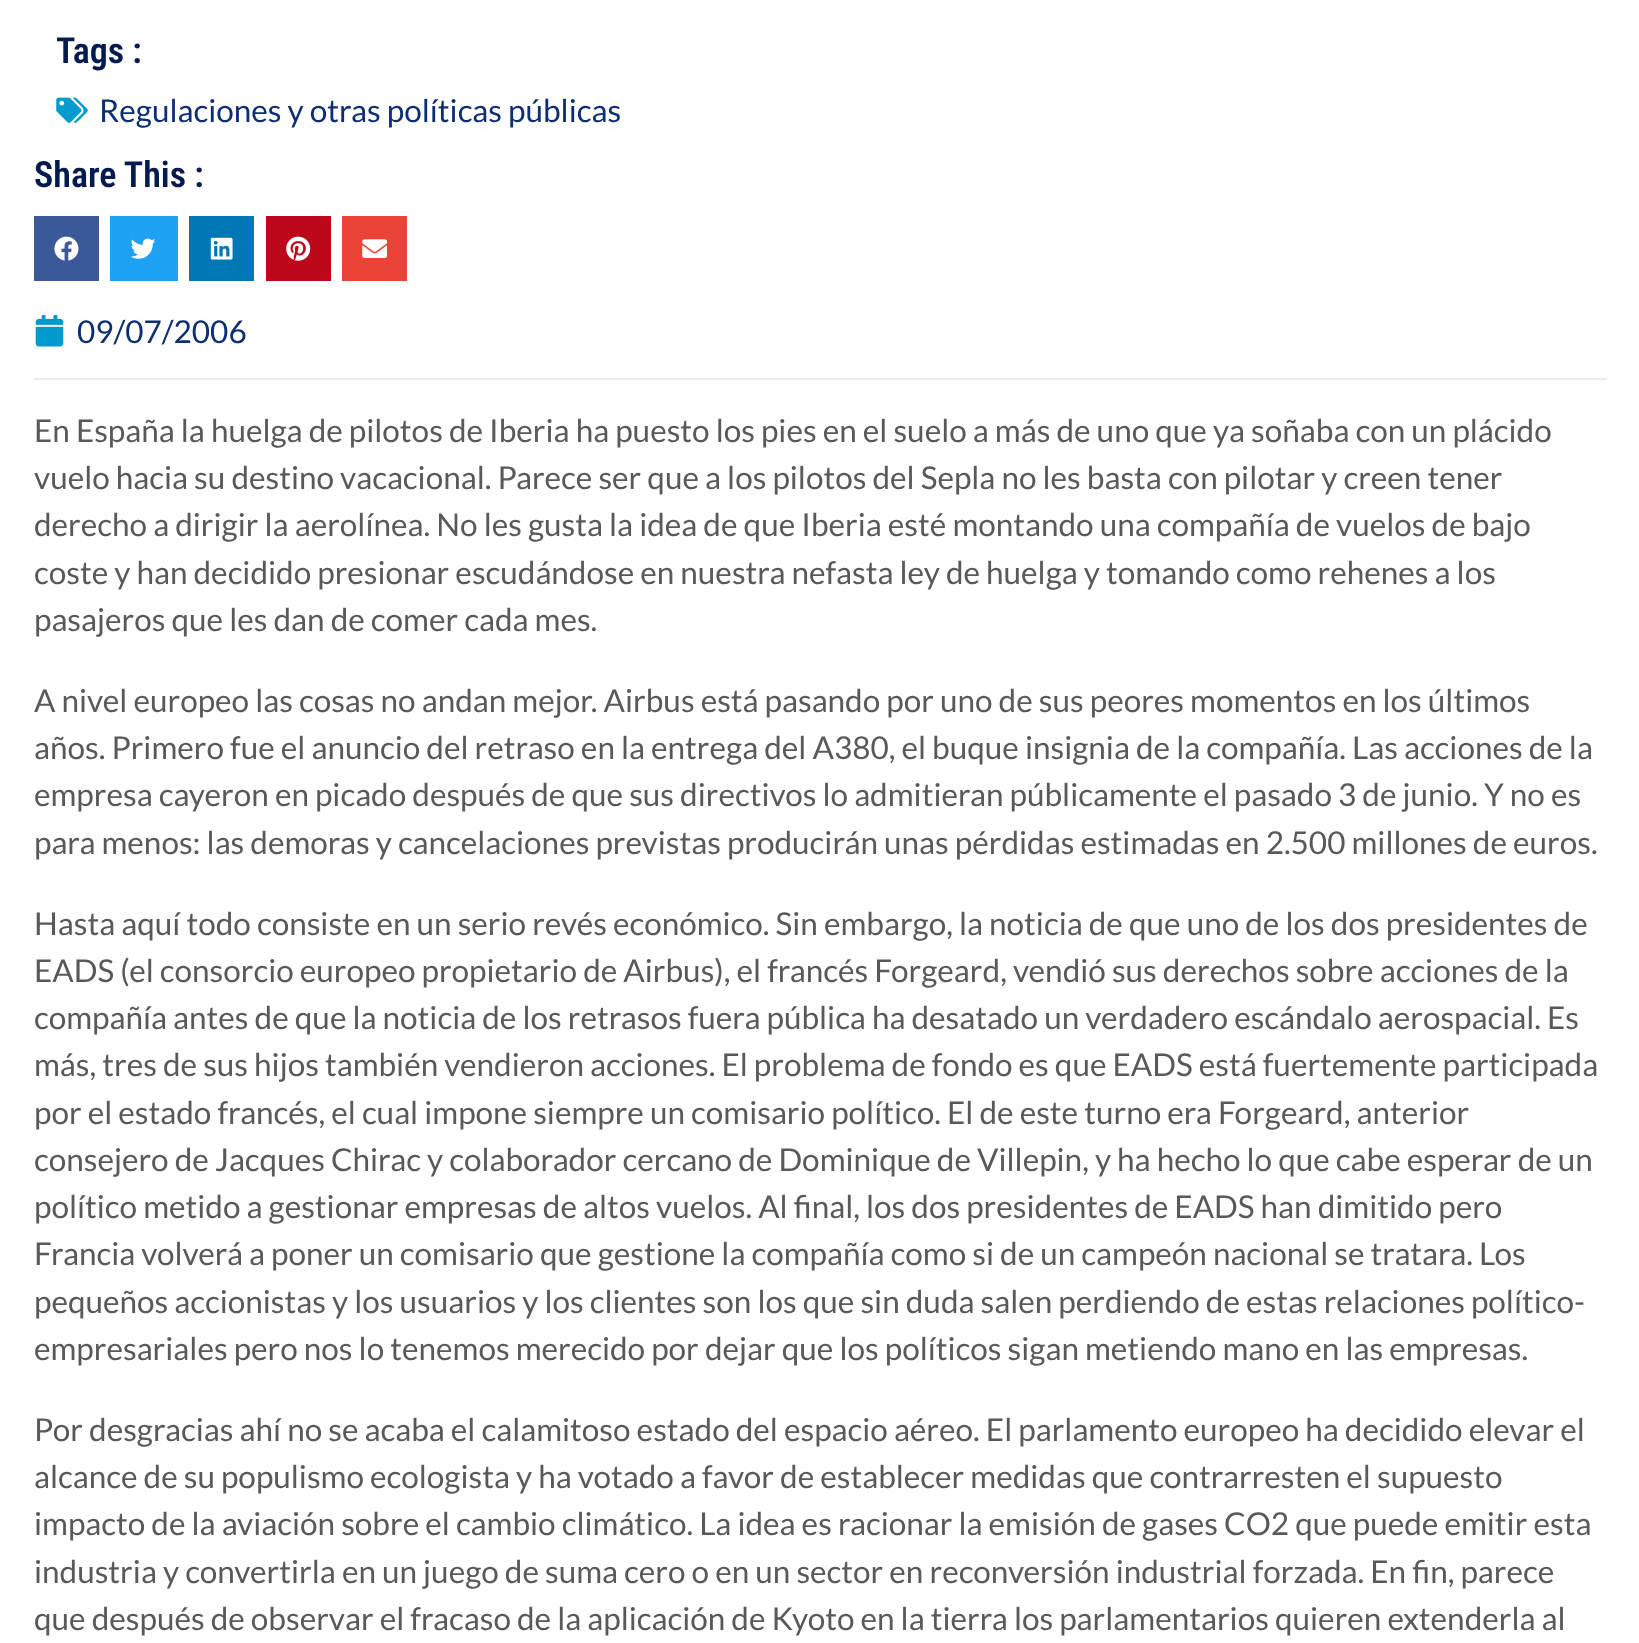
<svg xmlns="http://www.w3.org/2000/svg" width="1639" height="1643">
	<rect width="100%" height="100%" fill="#FFFFFF" />
	<text x="56" y="63" font-family="Roboto Condensed" font-size="36" font-weight="600" fill="#031B4E">Tags :</text>
	<image x="56" y="97" width="32" height="26" href="assets/img1.png" />
	<text x="99" y="122" font-family="Lato" font-size="31.5" fill="#0C2E73">Regulaciones y otras políticas públicas</text>
	<text x="34" y="187" font-family="Roboto Condensed" font-size="36" font-weight="600" fill="#031B4E">Share This :</text>
	<rect x="34" y="216" width="65" height="65" fill="#3B5998" />
	<image x="54" y="236" width="25" height="25" href="assets/img2.png" />
	<rect x="110" y="216" width="68" height="65" fill="#1DA1F2" />
	<image x="131" y="238" width="24" height="21" href="assets/img3.png" />
	<rect x="189" y="216" width="65" height="65" fill="#0077B5" />
	<image x="210" y="237" width="23" height="23" href="assets/img4.png" />
	<rect x="266" y="216" width="65" height="65" fill="#BD081C" />
	<image x="286" y="236" width="25" height="25" href="assets/img5.png" />
	<rect x="342" y="216" width="65" height="65" fill="#EA4335" />
	<image x="362" y="239" width="25" height="19" href="assets/img6.png" />
	<image x="35" y="315" width="29" height="32" href="assets/img7.png" />
	<text x="77" y="343" font-family="Lato" font-size="31.5" fill="#0C2E73">09/07/2006</text>
	<rect x="34" y="378" width="1573" height="2" fill="#EAEAEA" />
	<g font-family="Lato" font-size="31.5" fill="#595959">
		<text x="34" y="442">En España la huelga de pilotos de Iberia ha puesto los pies en el suelo a más de uno que ya soñaba con un plácido</text>
		<text x="34" y="489">vuelo hacia su destino vacacional. Parece ser que a los pilotos del Sepla no les basta con pilotar y creen tener</text>
		<text x="34" y="536">derecho a dirigir la aerolínea. No les gusta la idea de que Iberia esté montando una compañía de vuelos de bajo</text>
		<text x="34" y="584">coste y han decidido presionar escudándose en nuestra nefasta ley de huelga y tomando como rehenes a los</text>
		<text x="34" y="631">pasajeros que les dan de comer cada mes.</text>
		<text x="34" y="712">A nivel europeo las cosas no andan mejor. Airbus está pasando por uno de sus peores momentos en los últimos</text>
		<text x="34" y="759">años. Primero fue el anuncio del retraso en la entrega del A380, el buque insignia de la compañía. Las acciones de la</text>
		<text x="34" y="806">empresa cayeron en picado después de que sus directivos lo admitieran públicamente el pasado 3 de junio. Y no es</text>
		<text x="34" y="854">para menos: las demoras y cancelaciones previstas producirán unas pérdidas estimadas en 2.500 millones de euros.</text>
		<text x="34" y="935">Hasta aquí todo consiste en un serio revés económico. Sin embargo, la noticia de que uno de los dos presidentes de</text>
		<text x="34" y="982">EADS (el consorcio europeo propietario de Airbus), el francés Forgeard, vendió sus derechos sobre acciones de la</text>
		<text x="34" y="1029">compañía antes de que la noticia de los retrasos fuera pública ha desatado un verdadero escándalo aerospacial. Es</text>
		<text x="34" y="1076">más, tres de sus hijos también vendieron acciones. El problema de fondo es que EADS está fuertemente participada</text>
		<text x="34" y="1124">por el estado francés, el cual impone siempre un comisario político. El de este turno era Forgeard, anterior</text>
		<text x="34" y="1171">consejero de Jacques Chirac y colaborador cercano de Dominique de Villepin, y ha hecho lo que cabe esperar de un</text>
		<text x="34" y="1218">político metido a gestionar empresas de altos vuelos. Al final, los dos presidentes de EADS han dimitido pero</text>
		<text x="34" y="1265">Francia volverá a poner un comisario que gestione la compañía como si de un campeón nacional se tratara. Los</text>
		<text x="34" y="1313">pequeños accionistas y los usuarios y los clientes son los que sin duda salen perdiendo de estas relaciones político-</text>
		<text x="34" y="1360">empresariales pero nos lo tenemos merecido por dejar que los políticos sigan metiendo mano en las empresas.</text>
		<text x="34" y="1441">Por desgracias ahí no se acaba el calamitoso estado del espacio aéreo. El parlamento europeo ha decidido elevar el</text>
		<text x="34" y="1488">alcance de su populismo ecologista y ha votado a favor de establecer medidas que contrarresten el supuesto</text>
		<text x="34" y="1535">impacto de la aviación sobre el cambio climático. La idea es racionar la emisión de gases CO2 que puede emitir esta</text>
		<text x="34" y="1583">industria y convertirla en un juego de suma cero o en un sector en reconversión industrial forzada. En fin, parece</text>
		<text x="34" y="1630">que después de observar el fracaso de la aplicación de Kyoto en la tierra los parlamentarios quieren extenderla al</text>
	</g>
</svg>
